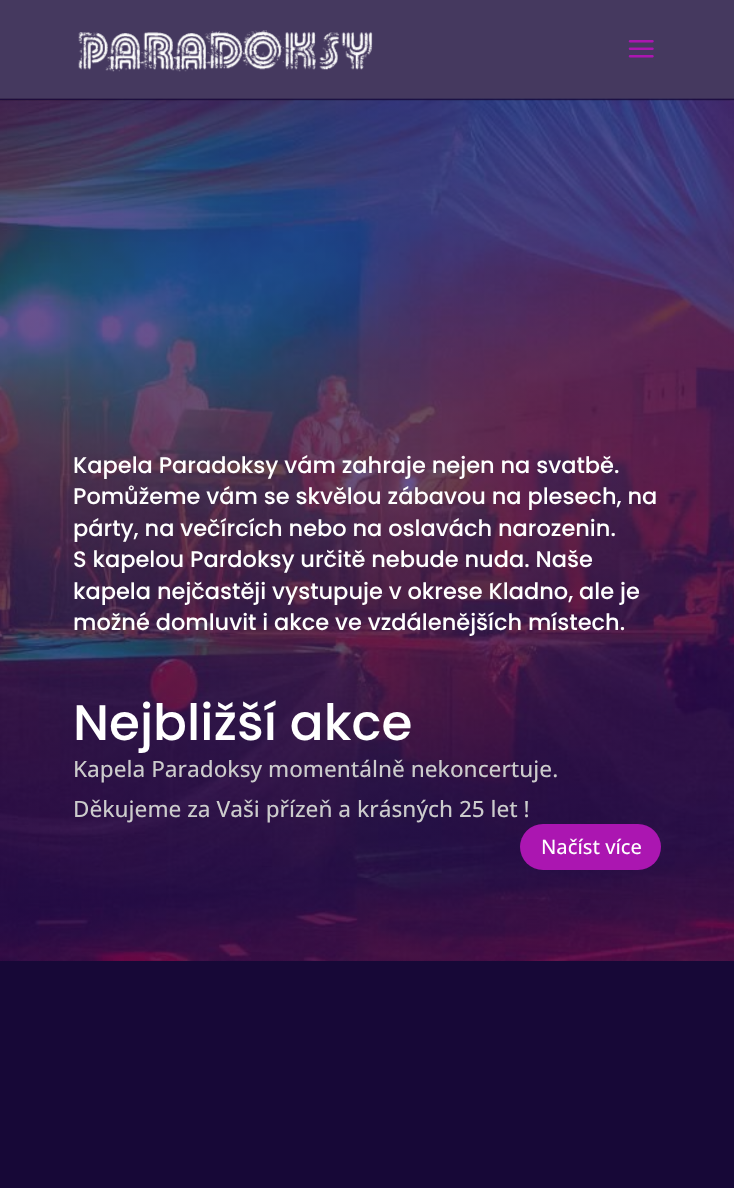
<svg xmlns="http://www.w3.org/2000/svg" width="734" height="1188">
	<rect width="100%" height="100%" fill="#FFFFFF" />
	<image x="0" y="98" width="734" height="863" href="assets/img3.png" />
	<rect x="0" y="100" width="734" height="1" fill="#000000" fill-opacity="0.1" />
	<rect x="0" y="0" width="734" height="100" fill="#170837" fill-opacity="0.8" />
	<image x="78" y="30" width="295" height="42" href="assets/img1.png" />
	<image x="628" y="40" width="26" height="18" href="assets/img2.png" />
	<g font-family="Poppins" font-size="22.5" font-weight="500" fill="#FFFFFF">
		<text x="73" y="473">Kapela Paradoksy vám zahraje nejen na svatbě.</text>
		<text x="73" y="504">Pomůžeme vám se skvělou zábavou na plesech, na</text>
		<text x="73" y="536">párty, na večírcích nebo na oslavách narozenin.</text>
		<text x="73" y="567">S kapelou Pardoksy určitě nebude nuda. Naše</text>
		<text x="73" y="599">kapela nejčastěji vystupuje v okrese Kladno, ale je</text>
		<text x="73" y="630">možné domluvit i akce ve vzdálenějších místech.</text>
	</g>
	<text x="73" y="740" font-family="Poppins" font-size="50" font-weight="500" fill="#FFFFFF">Nejbližší akce</text>
	<g font-family="Open Sans" font-size="22.5" font-weight="500" fill="#CCCCCC">
		<text x="73" y="777">Kapela Paradoksy momentálně nekoncertuje.</text>
		<text x="73" y="817">Děkujeme za Vaši přízeň a krásných 25 let !</text>
	</g>
	<rect x="520" y="824" width="141" height="46" rx="23" fill="#AB16B1" />
	<text x="541" y="854" font-family="Open Sans" font-size="20" font-weight="500" fill="#FFFFFF">Načíst více</text>
	<rect x="0" y="961" width="734" height="227" fill="#170837" />
</svg>
